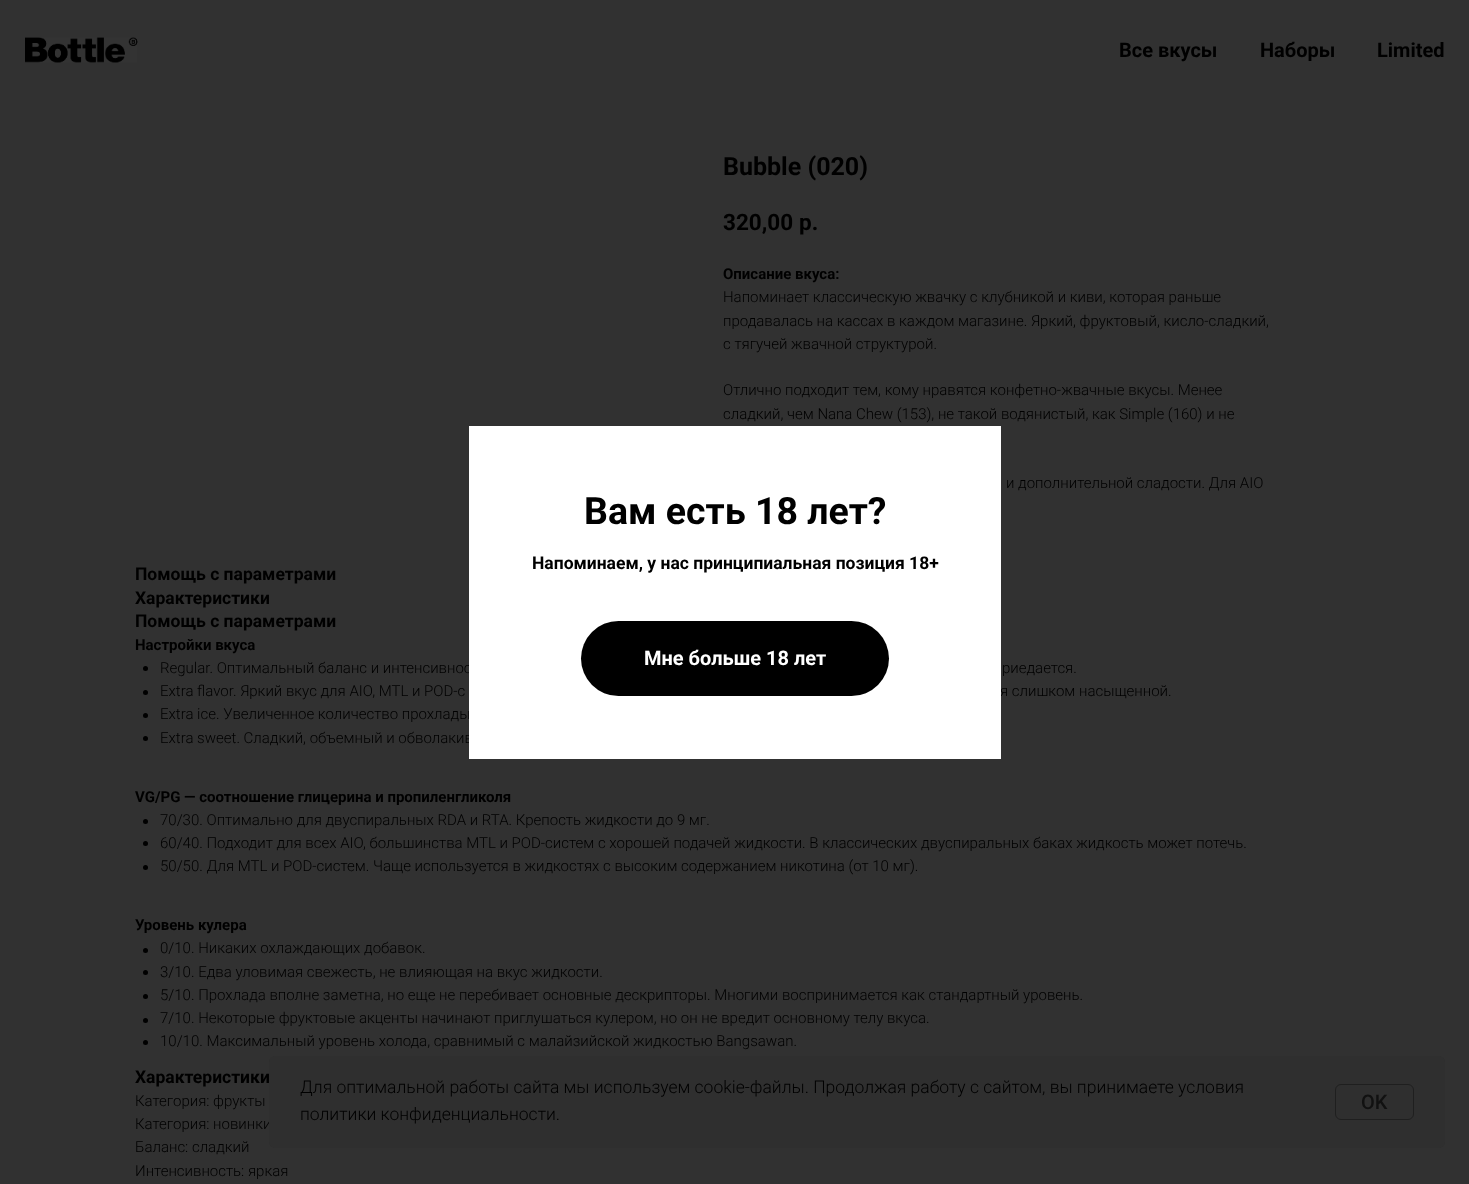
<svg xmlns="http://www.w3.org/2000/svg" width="1469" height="1184">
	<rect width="100%" height="100%" fill="#313131" />
	<image x="25" y="37" width="113" height="26" href="assets/img1.png" />
	<g font-family="Roboto" font-size="20" font-weight="700" fill="#000000">
		<text x="1119" y="57">Все вкусы</text>
		<text x="1260" y="57">Наборы</text>
		<text x="1377" y="57">Limited</text>
	</g>
	<text x="723" y="175" font-family="Roboto" font-size="25" font-weight="700" fill="#000000">Bubble (020)</text>
	<g font-family="Roboto" font-size="22.5" font-weight="700" fill="#000000">
		<text x="723" y="230">320,00</text>
		<text x="799" y="230">р.</text>
	</g>
	<text x="723" y="279" font-family="Roboto" font-size="15" font-weight="700" fill="#000000">Описание вкуса:</text>
	<g font-family="Roboto" font-size="15" font-weight="300" fill="#000000">
		<text x="723" y="302">Напоминает классическую жвачку с клубникой и киви, которая раньше</text>
		<text x="723" y="326">продавалась на кассах в каждом магазине. Яркий, фруктовый, кисло-сладкий,</text>
		<text x="723" y="349">с тягучей жвачной структурой.</text>
		<text x="723" y="395">Отлично подходит тем, кому нравятся конфетно-жвачные вкусы. Менее</text>
		<text x="723" y="419">сладкий, чем Nana Chew (153), не такой водянистый, как Simple (160) и не</text>
		<text x="1006" y="488">и дополнительной сладости. Для AIO</text>
	</g>
	<g font-family="Roboto" font-size="17.5" font-weight="700" fill="#000000">
		<text x="135" y="580">Помощь с параметрами</text>
		<text x="135" y="604">Характеристики</text>
		<text x="135" y="627">Помощь с параметрами</text>
	</g>
	<text x="135" y="650" font-family="Roboto" font-size="15" font-weight="700" fill="#000000">Настройки вкуса</text>
	<circle cx="145.5" cy="668.5" r="2.5" fill="#000000" />
	<g font-family="Roboto" font-size="15" font-weight="300" fill="#000000">
		<text x="160" y="673">Regular. Оптимальный баланс и интенсивнос</text>
		<text x="1002" y="673">риедается.</text>
	</g>
	<circle cx="145.5" cy="692.5" r="2.5" fill="#000000" />
	<g font-family="Roboto" font-size="15" font-weight="300" fill="#000000">
		<text x="160" y="696">Extra flavor. Яркий вкус для AIO, MTL и POD-с</text>
		<text x="1000" y="696">я слишком насыщенной.</text>
	</g>
	<circle cx="145.5" cy="715.5" r="2.5" fill="#000000" />
	<text x="160" y="719" font-family="Roboto" font-size="15" font-weight="300" fill="#000000">Extra ice. Увеличенное количество прохлады</text>
	<circle cx="145.5" cy="738.5" r="2.5" fill="#000000" />
	<text x="160" y="743" font-family="Roboto" font-size="15" font-weight="300" fill="#000000">Extra sweet. Сладкий, объемный и обволакив</text>
	<text x="135" y="802" font-family="Roboto" font-size="15" font-weight="700" fill="#000000">VG/PG — соотношение глицерина и пропиленгликоля</text>
	<circle cx="145.5" cy="821.5" r="2.5" fill="#000000" />
	<text x="160" y="825" font-family="Roboto" font-size="15" font-weight="300" fill="#000000">70/30. Оптимально для двуспиральных RDA и RTA. Крепость жидкости до 9 мг.</text>
	<circle cx="145.5" cy="843.5" r="2.5" fill="#000000" />
	<text x="160" y="848" font-family="Roboto" font-size="15" font-weight="300" fill="#000000">60/40. Подходит для всех AIO, большинства MTL и POD-систем с хорошей подачей жидкости. В классических двуспиральных баках жидкость может потечь.</text>
	<circle cx="145.5" cy="867.5" r="2.5" fill="#000000" />
	<text x="160" y="871" font-family="Roboto" font-size="15" font-weight="300" fill="#000000">50/50. Для MTL и POD-систем. Чаще используется в жидкостях с высоким содержанием никотина (от 10 мг).</text>
	<text x="135" y="930" font-family="Roboto" font-size="15" font-weight="700" fill="#000000">Уровень кулера</text>
	<circle cx="145.5" cy="950.5" r="2.5" fill="#000000" />
	<text x="160" y="953" font-family="Roboto" font-size="15" font-weight="300" fill="#000000">0/10. Никаких охлаждающих добавок.</text>
	<circle cx="145.5" cy="972.5" r="2.5" fill="#000000" />
	<text x="160" y="977" font-family="Roboto" font-size="15" font-weight="300" fill="#000000">3/10. Едва уловимая свежесть, не влияющая на вкус жидкости.</text>
	<circle cx="145.5" cy="996.5" r="2.5" fill="#000000" />
	<text x="160" y="1000" font-family="Roboto" font-size="15" font-weight="300" fill="#000000">5/10. Прохлада вполне заметна, но еще не перебивает основные дескрипторы. Многими воспринимается как стандартный уровень.</text>
	<circle cx="145.5" cy="1020.5" r="2.5" fill="#000000" />
	<text x="160" y="1023" font-family="Roboto" font-size="15" font-weight="300" fill="#000000">7/10. Некоторые фруктовые акценты начинают приглушаться кулером, но он не вредит основному телу вкуса.</text>
	<circle cx="145.5" cy="1042.5" r="2.5" fill="#000000" />
	<text x="160" y="1046" font-family="Roboto" font-size="15" font-weight="300" fill="#000000">10/10. Максимальный уровень холода, сравнимый с малайзийской жидкостью Bangsawan.</text>
	<text x="135" y="1083" font-family="Roboto" font-size="17.5" font-weight="700" fill="#000000">Характеристики</text>
	<g font-family="Roboto" font-size="15" font-weight="300" fill="#000000">
		<text x="135" y="1106">Категория: фрукты</text>
		<text x="135" y="1129">Категория: новинки</text>
		<text x="135" y="1152">Баланс: сладкий</text>
		<text x="135" y="1176">Интенсивность: яркая</text>
	</g>
	<rect x="469" y="426" width="532" height="333" fill="#FFFFFF" />
	<text x="584" y="524" font-family="Roboto" font-size="37.5" font-weight="700" fill="#000000">Вам есть 18 лет?</text>
	<text x="532" y="569" font-family="Roboto" font-size="17.5" font-weight="700" fill="#000000">Напоминаем, у нас принципиальная позиция 18+</text>
	<rect x="581" y="621" width="308" height="75" rx="37.5" fill="#000000" />
	<text x="644" y="665" font-family="Roboto" font-size="20" font-weight="700" fill="#FFFFFF">Мне больше 18 лет</text>
	<rect x="269" y="1056" width="1176" height="92" rx="6" fill="#2F2F2F" />
	<g font-family="Roboto" font-size="17.5" font-weight="300" fill="#000000">
		<text x="300" y="1093">Для оптимальной работы сайта мы используем cookie-файлы. Продолжая работу с сайтом, вы принимаете условия</text>
		<text x="300" y="1120">политики конфиденциальности.</text>
	</g>
	<rect x="1335.5" y="1084.5" width="78" height="35" rx="5.5" fill="none" stroke="#1F1F1F" />
	<text x="1361" y="1109" font-family="Roboto" font-size="20" font-weight="500" fill="#111111">OK</text>
</svg>
